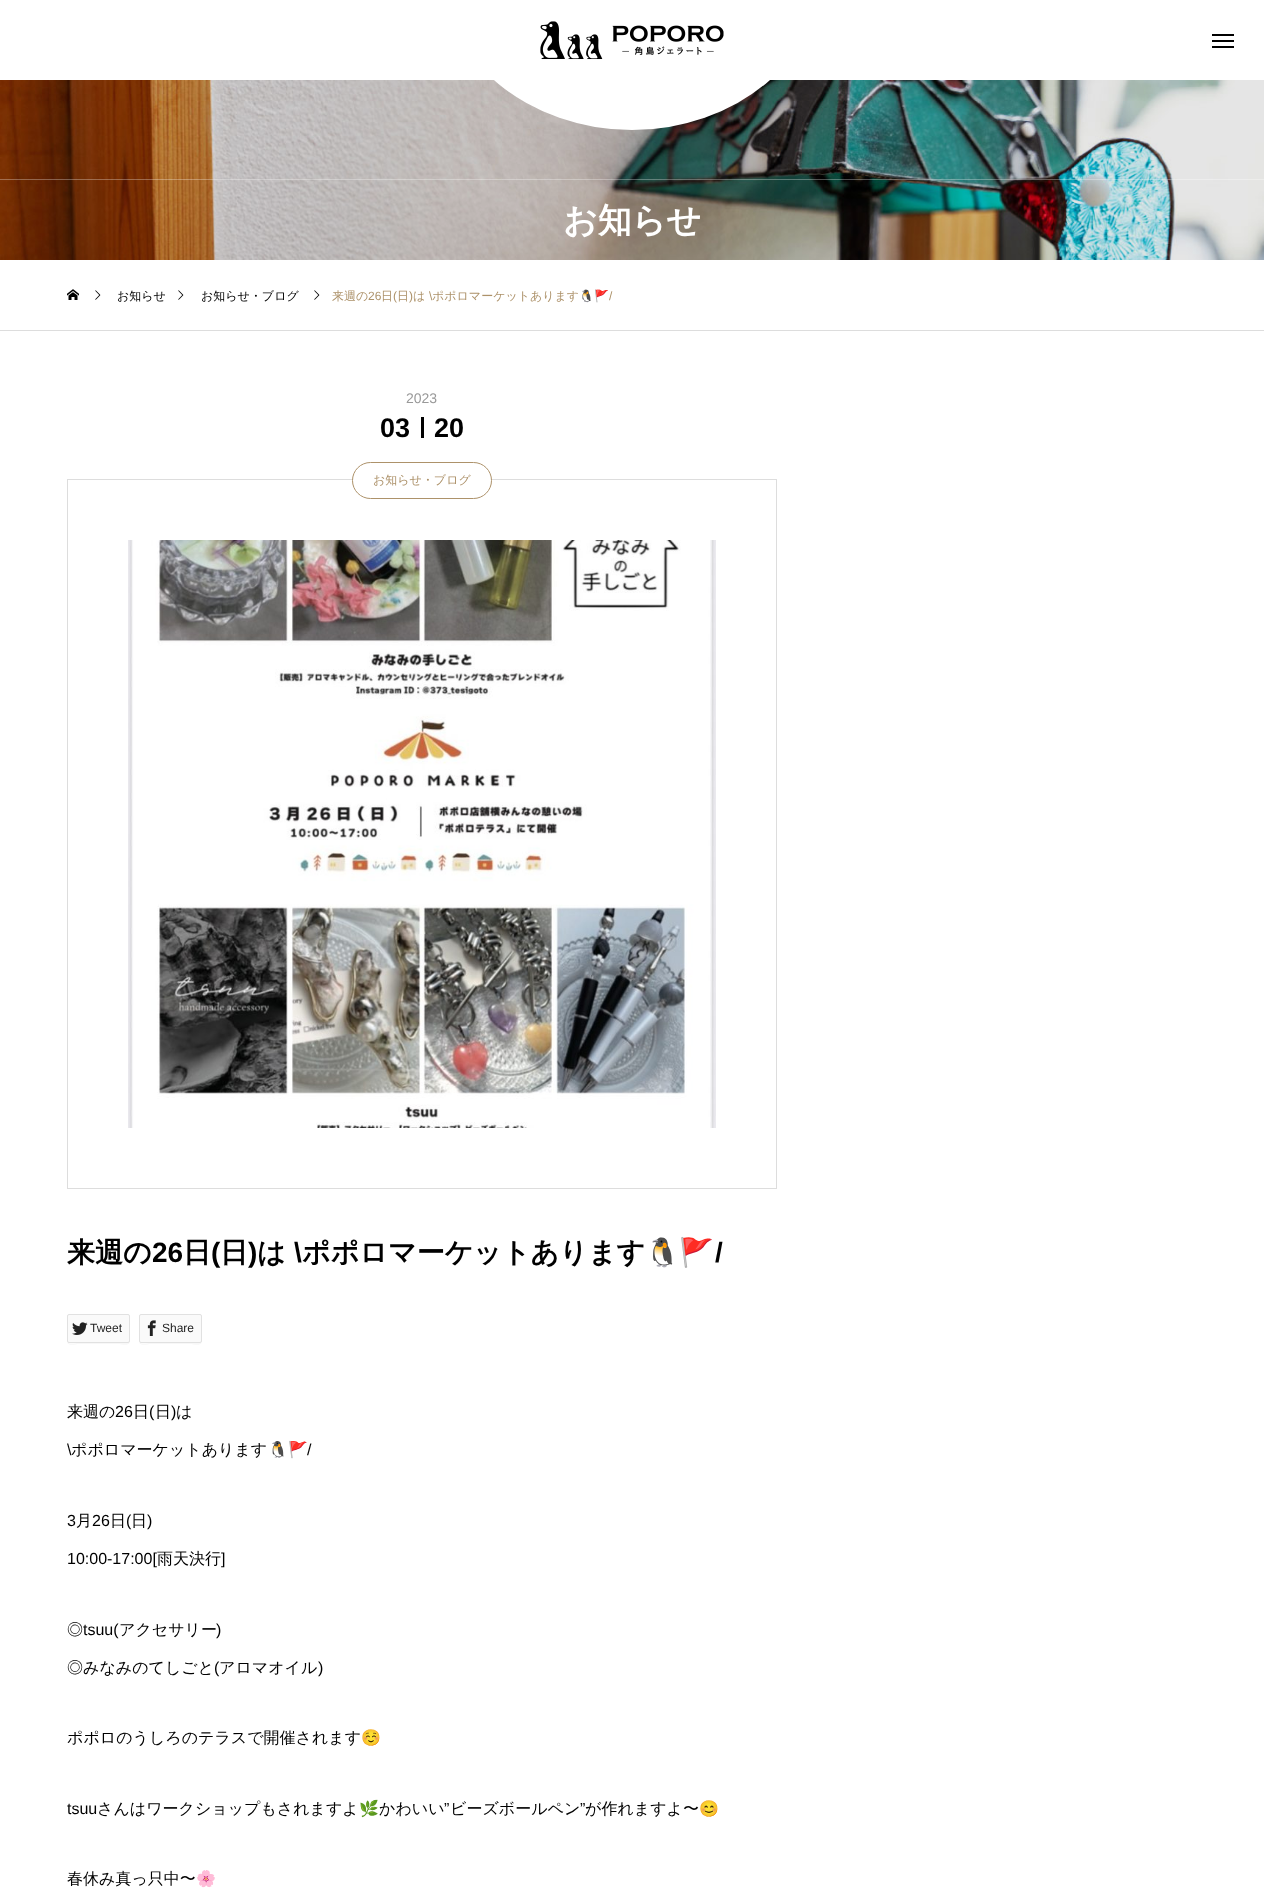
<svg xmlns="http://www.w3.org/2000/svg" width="1264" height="1902">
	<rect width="100%" height="100%" fill="#FFFFFF" />
	<image x="0" y="80" width="1264" height="180" href="assets/img2.png" />
	<rect x="442" y="-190" width="380" height="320" rx="190" fill="#FFFFFF" />
	<image x="540" y="21" width="184" height="39" href="assets/img1.png" />
	<rect x="1212" y="34" width="22" height="2" fill="#000000" />
	<rect x="1212" y="40" width="22" height="2" fill="#000000" />
	<rect x="1212" y="46" width="22" height="2" fill="#000000" />
	<rect x="0" y="179" width="1264" height="1" fill="#FFFFFF" fill-opacity="0.3" />
	<text x="563" y="232" font-family="WenQuanYi Zen Hei" font-size="34" font-weight="700" fill="#FFFFFF">お知らせ</text>
	<rect x="0" y="330" width="1264" height="1" fill="#DDDDDD" />
	<image x="67" y="289" width="12" height="11" href="assets/img3.png" />
	<image x="95" y="290" width="6" height="10" href="assets/img4.png" />
	<text x="117" y="300" font-family="WenQuanYi Zen Hei" font-size="12" font-weight="500" fill="#000000">お知らせ</text>
	<image x="178" y="290" width="6" height="10" href="assets/img4.png" />
	<text x="201" y="300" font-family="WenQuanYi Zen Hei" font-size="12" font-weight="500" fill="#000000">お知らせ・ブログ</text>
	<image x="314" y="290" width="6" height="10" href="assets/img4.png" />
	<text x="332" y="300" font-family="WenQuanYi Zen Hei" font-size="12" font-weight="500" fill="#AD926A">来週の</text>
	<text x="368" y="300" font-family="Liberation Sans" font-size="12" fill="#AD926A">26</text>
	<text x="381" y="300" font-family="WenQuanYi Zen Hei" font-size="12" font-weight="500" fill="#AD926A">日</text>
	<text x="393" y="300" font-family="Liberation Sans" font-size="12" fill="#AD926A">(</text>
	<text x="397" y="300" font-family="WenQuanYi Zen Hei" font-size="12" font-weight="500" fill="#AD926A">日</text>
	<text x="409" y="300" font-family="Liberation Sans" font-size="12" fill="#AD926A">)</text>
	<text x="413" y="300" font-family="WenQuanYi Zen Hei" font-size="12" font-weight="500" fill="#AD926A">は</text>
	<text x="429" y="300" font-family="Liberation Sans" font-size="12" fill="#AD926A">\</text>
	<text x="432" y="300" font-family="WenQuanYi Zen Hei" font-size="12" font-weight="500" fill="#AD926A">ポポロマーケットあります</text>
	<text x="579" y="300" font-family="Noto Color Emoji" font-size="12" fill="#AD926A">🐧🚩</text>
	<text x="609" y="300" font-family="Liberation Sans" font-size="12" fill="#AD926A">/</text>
	<text x="406" y="403" font-family="Liberation Sans" font-size="14" fill="#999999">2023</text>
	<text x="380" y="437" font-family="Liberation Sans" font-size="27" font-weight="700" fill="#000000">03</text>
	<rect x="421" y="417" width="3" height="21" fill="#000000" />
	<text x="434" y="437" font-family="Liberation Sans" font-size="27" font-weight="700" fill="#000000">20</text>
	<rect x="67.5" y="479.5" width="709" height="709" fill="none" stroke="#DDDDDD" />
	<rect x="352.5" y="462.5" width="139" height="36" rx="18" fill="#FFFFFF" stroke="#AD926A" />
	<text x="373" y="484" font-family="WenQuanYi Zen Hei" font-size="12" font-weight="500" fill="#AD926A">お知らせ・ブログ</text>
	<image x="128" y="540" width="588" height="588" href="assets/img5.png" />
	<text x="67" y="1262" font-family="WenQuanYi Zen Hei" font-size="28" font-weight="700" fill="#000000">来週の</text>
	<text x="152" y="1262" font-family="Liberation Sans" font-size="28" font-weight="700" fill="#000000">26</text>
	<text x="183" y="1262" font-family="WenQuanYi Zen Hei" font-size="28" font-weight="700" fill="#000000">日</text>
	<text x="211" y="1262" font-family="Liberation Sans" font-size="28" font-weight="700" fill="#000000">(</text>
	<text x="220" y="1262" font-family="WenQuanYi Zen Hei" font-size="28" font-weight="700" fill="#000000">日</text>
	<text x="248" y="1262" font-family="Liberation Sans" font-size="28" font-weight="700" fill="#000000">)</text>
	<text x="257" y="1262" font-family="WenQuanYi Zen Hei" font-size="28" font-weight="700" fill="#000000">は</text>
	<text x="294" y="1262" font-family="Liberation Sans" font-size="28" font-weight="700" fill="#000000">\</text>
	<text x="302" y="1262" font-family="WenQuanYi Zen Hei" font-size="28" font-weight="700" fill="#000000">ポポロマーケットあります</text>
	<text x="645" y="1262" font-family="Noto Color Emoji" font-size="28" font-weight="700" fill="#000000">🐧🚩</text>
	<text x="715" y="1262" font-family="Liberation Sans" font-size="28" font-weight="700" fill="#000000">/</text>
	<path d="M67 1341C67 1347 75 1344 79 1344H118C122 1344 130 1347 130 1341L129 1343H79C75 1343 67 1345 67 1341Z" fill="#F7F7F7" />
	<rect x="67.5" y="1314.5" width="62" height="28" rx="1.5" fill="#FAFAFA" stroke="#E1E1E1" />
	<image x="72" y="1322" width="16" height="13" href="assets/img6.png" />
	<text x="90" y="1332" font-family="Liberation Sans" font-size="12" fill="#222222">Tweet</text>
	<path d="M139 1341C139 1347 147 1344 151 1344H190C194 1344 202 1347 202 1341L201 1343H151C147 1343 139 1345 139 1341Z" fill="#F7F7F7" />
	<rect x="139.5" y="1314.5" width="62" height="28" rx="1.5" fill="#FAFAFA" stroke="#E1E1E1" />
	<image x="147" y="1320" width="9" height="16" href="assets/img7.png" />
	<text x="162" y="1332" font-family="Liberation Sans" font-size="12" fill="#222222">Share</text>
	<text x="67" y="1417" font-family="WenQuanYi Zen Hei" font-size="16" font-weight="500" fill="#000000">来週の</text>
	<text x="115" y="1417" font-family="Liberation Sans" font-size="16" fill="#000000">26</text>
	<text x="133" y="1417" font-family="WenQuanYi Zen Hei" font-size="16" font-weight="500" fill="#000000">日</text>
	<text x="149" y="1417" font-family="Liberation Sans" font-size="16" fill="#000000">(</text>
	<text x="155" y="1417" font-family="WenQuanYi Zen Hei" font-size="16" font-weight="500" fill="#000000">日</text>
	<text x="171" y="1417" font-family="Liberation Sans" font-size="16" fill="#000000">)</text>
	<text x="176" y="1417" font-family="WenQuanYi Zen Hei" font-size="16" font-weight="500" fill="#000000">は</text>
	<text x="67" y="1455" font-family="Liberation Sans" font-size="16" fill="#000000">\</text>
	<text x="71" y="1455" font-family="WenQuanYi Zen Hei" font-size="16" font-weight="500" fill="#000000">ポポロマーケットあります</text>
	<text x="268" y="1455" font-family="Noto Color Emoji" font-size="16" fill="#000000">🐧🚩</text>
	<g font-family="Liberation Sans" font-size="16" fill="#000000">
		<text x="307" y="1455">/</text>
		<text x="67" y="1526">3</text>
	</g>
	<text x="76" y="1526" font-family="WenQuanYi Zen Hei" font-size="16" font-weight="500" fill="#000000">月</text>
	<text x="92" y="1526" font-family="Liberation Sans" font-size="16" fill="#000000">26</text>
	<text x="110" y="1526" font-family="WenQuanYi Zen Hei" font-size="16" font-weight="500" fill="#000000">日</text>
	<text x="126" y="1526" font-family="Liberation Sans" font-size="16" fill="#000000">(</text>
	<text x="131" y="1526" font-family="WenQuanYi Zen Hei" font-size="16" font-weight="500" fill="#000000">日</text>
	<g font-family="Liberation Sans" font-size="16" fill="#000000">
		<text x="147" y="1526">)</text>
		<text x="67" y="1564">10:00-17:00[</text>
	</g>
	<text x="157" y="1564" font-family="WenQuanYi Zen Hei" font-size="16" font-weight="500" fill="#000000">雨天決行</text>
	<text x="221" y="1564" font-family="Liberation Sans" font-size="16" fill="#000000">]</text>
	<text x="67" y="1635" font-family="WenQuanYi Zen Hei" font-size="16" font-weight="500" fill="#000000">◎</text>
	<text x="83" y="1635" font-family="Liberation Sans" font-size="16" fill="#000000">tsuu(</text>
	<text x="119" y="1635" font-family="WenQuanYi Zen Hei" font-size="16" font-weight="500" fill="#000000">アクセサリー</text>
	<text x="216" y="1635" font-family="Liberation Sans" font-size="16" fill="#000000">)</text>
	<text x="67" y="1673" font-family="WenQuanYi Zen Hei" font-size="16" font-weight="500" fill="#000000">◎みなみのてしごと</text>
	<text x="214" y="1673" font-family="Liberation Sans" font-size="16" fill="#000000">(</text>
	<text x="219" y="1673" font-family="WenQuanYi Zen Hei" font-size="16" font-weight="500" fill="#000000">アロマオイル</text>
	<text x="318" y="1673" font-family="Liberation Sans" font-size="16" fill="#000000">)</text>
	<text x="67" y="1743" font-family="WenQuanYi Zen Hei" font-size="16" font-weight="500" fill="#000000">ポポロのうしろのテラスで開催されます</text>
	<text x="361" y="1743" font-family="Noto Color Emoji" font-size="16" fill="#000000">☺️</text>
	<text x="67" y="1814" font-family="Liberation Sans" font-size="16" fill="#000000">tsuu</text>
	<text x="97" y="1814" font-family="WenQuanYi Zen Hei" font-size="16" font-weight="500" fill="#000000">さんはワークショップもされますよ</text>
	<text x="359" y="1814" font-family="Noto Color Emoji" font-size="16" fill="#000000">🌿</text>
	<text x="379" y="1814" font-family="WenQuanYi Zen Hei" font-size="16" font-weight="500" fill="#000000">かわいい</text>
	<text x="444" y="1814" font-family="Liberation Sans" font-size="16" fill="#000000">”</text>
	<text x="450" y="1814" font-family="WenQuanYi Zen Hei" font-size="16" font-weight="500" fill="#000000">ビーズボールペン</text>
	<text x="580" y="1814" font-family="Liberation Sans" font-size="16" fill="#000000">”</text>
	<text x="585" y="1814" font-family="WenQuanYi Zen Hei" font-size="16" font-weight="500" fill="#000000">が作れますよ〜</text>
	<text x="699" y="1814" font-family="Noto Color Emoji" font-size="16" fill="#000000">😊</text>
	<text x="67" y="1884" font-family="WenQuanYi Zen Hei" font-size="16" font-weight="500" fill="#000000">春休み真っ只中〜</text>
	<text x="196" y="1884" font-family="Noto Color Emoji" font-size="16" fill="#000000">🌸</text>
</svg>
